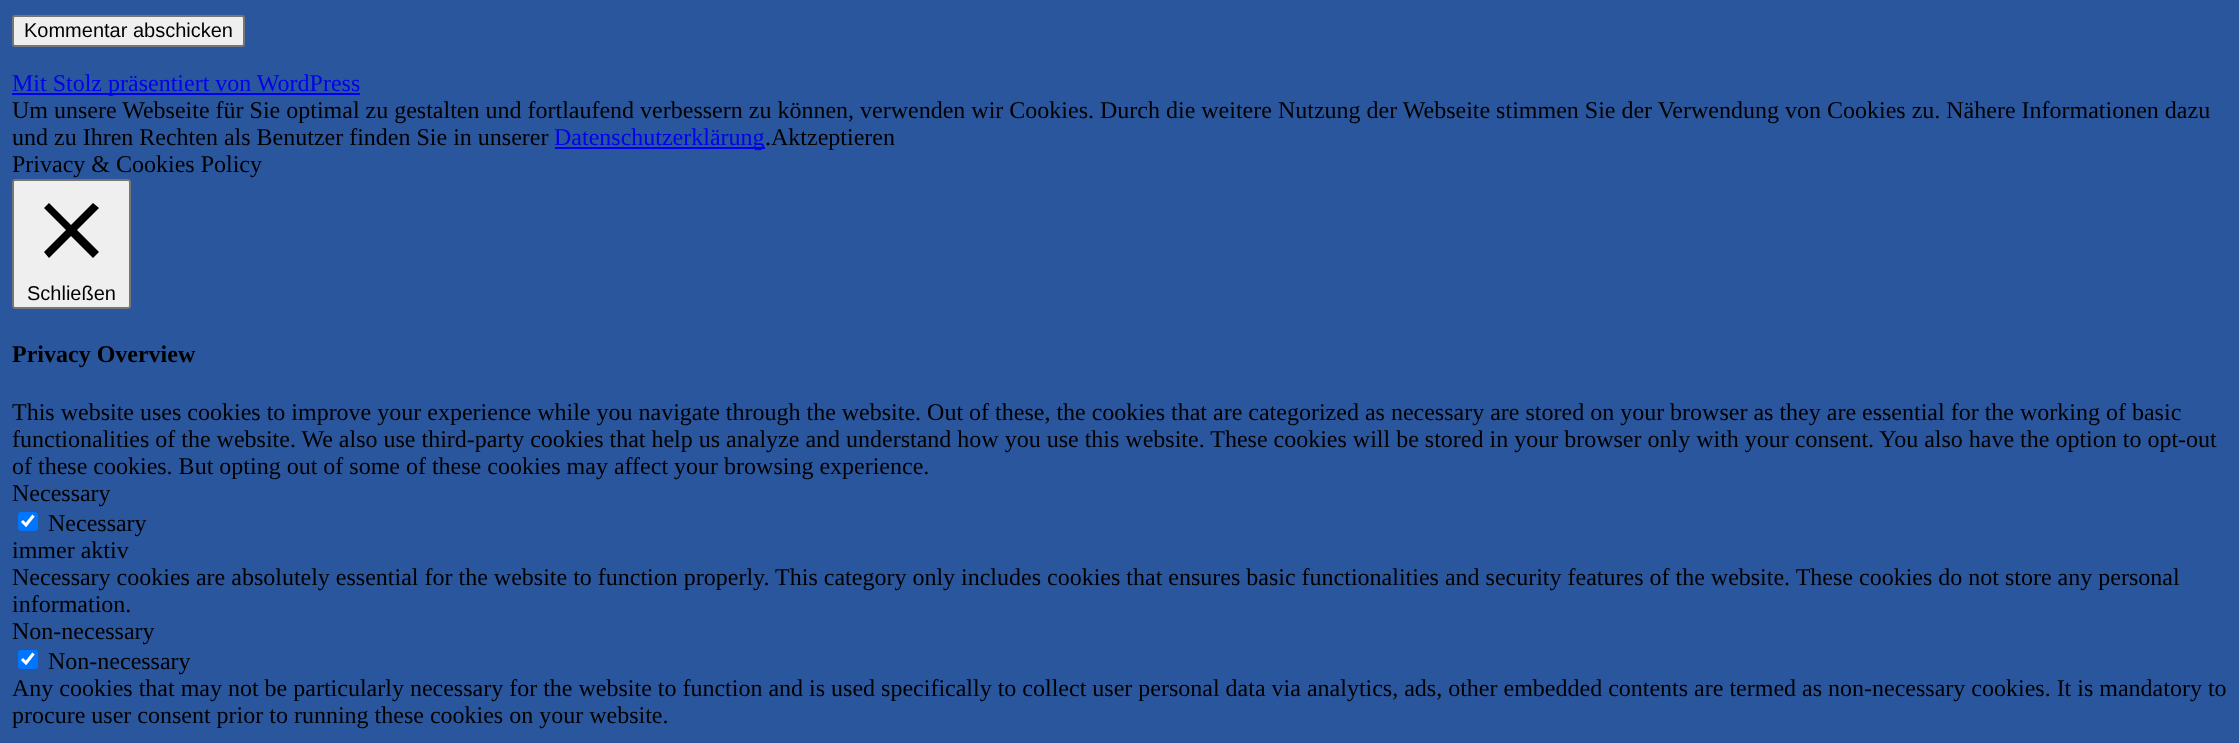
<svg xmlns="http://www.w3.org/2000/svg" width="2239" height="743">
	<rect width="100%" height="100%" fill="#2A569D" />
	<rect x="13" y="16" width="231" height="30" rx="2" fill="#EFEFEF" stroke="#767676" stroke-width="2" />
	<text x="24" y="37" font-family="Liberation Sans" font-size="20" fill="#000000">Kommentar abschicken</text>
	<rect x="12" y="93" width="348" height="2" fill="#0000EE" />
	<text x="12" y="91" font-family="Liberation Serif" font-size="24" fill="#0000EE">Mit Stolz präsentiert von WordPress</text>
	<g font-family="Liberation Serif" font-size="24" fill="#000000">
		<text x="12" y="118">Um unsere Webseite für Sie optimal zu gestalten und fortlaufend verbessern zu können, verwenden wir Cookies. Durch die weitere Nutzung der Webseite stimmen Sie der Verwendung von Cookies zu. Nähere Informationen dazu</text>
		<text x="12" y="145">und zu Ihren Rechten als Benutzer finden Sie in unserer</text>
	</g>
	<rect x="555" y="147" width="210" height="2" fill="#0000EE" />
	<text x="554" y="145" font-family="Liberation Serif" font-size="24" fill="#0000EE">Datenschutzerklärung</text>
	<g font-family="Liberation Serif" font-size="24" fill="#000000">
		<text x="765" y="145">.Aktzeptieren</text>
		<text x="12" y="172">Privacy &amp; Cookies Policy</text>
	</g>
	<rect x="13" y="180" width="117" height="128" rx="2" fill="#EFEFEF" stroke="#767676" stroke-width="2" />
	<path d="M99 208L93 203L71 225L49 203L44 208L66 230L44 252L49 258L71 236L93 258L99 252L77 230Z" fill="#000000" />
	<text x="27" y="300" font-family="Liberation Sans" font-size="20" fill="#000000">Schließen</text>
	<text x="12" y="362" font-family="Liberation Serif" font-size="24" font-weight="700" fill="#000000">Privacy Overview</text>
	<g font-family="Liberation Serif" font-size="24" fill="#000000">
		<text x="12" y="420">This website uses cookies to improve your experience while you navigate through the website. Out of these, the cookies that are categorized as necessary are stored on your browser as they are essential for the working of basic</text>
		<text x="12" y="447">functionalities of the website. We also use third-party cookies that help us analyze and understand how you use this website. These cookies will be stored in your browser only with your consent. You also have the option to opt-out</text>
		<text x="12" y="474">of these cookies. But opting out of some of these cookies may affect your browsing experience.</text>
		<text x="12" y="501">Necessary</text>
	</g>
	<rect x="18" y="512" width="20" height="19" rx="3" fill="#0075FF" />
	<path d="M22 521L26 525L33.5 515.5" fill="none" stroke="#FFFFFF" stroke-width="3.1" />
	<g font-family="Liberation Serif" font-size="24" fill="#000000">
		<text x="48" y="531">Necessary</text>
		<text x="12" y="558">immer aktiv</text>
		<text x="12" y="585">Necessary cookies are absolutely essential for the website to function properly. This category only includes cookies that ensures basic functionalities and security features of the website. These cookies do not store any personal</text>
		<text x="12" y="612">information.</text>
		<text x="12" y="639">Non-necessary</text>
	</g>
	<rect x="18" y="650" width="20" height="19" rx="3" fill="#0075FF" />
	<path d="M22 659L26 663L33.5 653.5" fill="none" stroke="#FFFFFF" stroke-width="3.1" />
	<g font-family="Liberation Serif" font-size="24" fill="#000000">
		<text x="48" y="669">Non-necessary</text>
		<text x="12" y="696">Any cookies that may not be particularly necessary for the website to function and is used specifically to collect user personal data via analytics, ads, other embedded contents are termed as non-necessary cookies. It is mandatory to</text>
		<text x="12" y="723">procure user consent prior to running these cookies on your website.</text>
	</g>
</svg>
